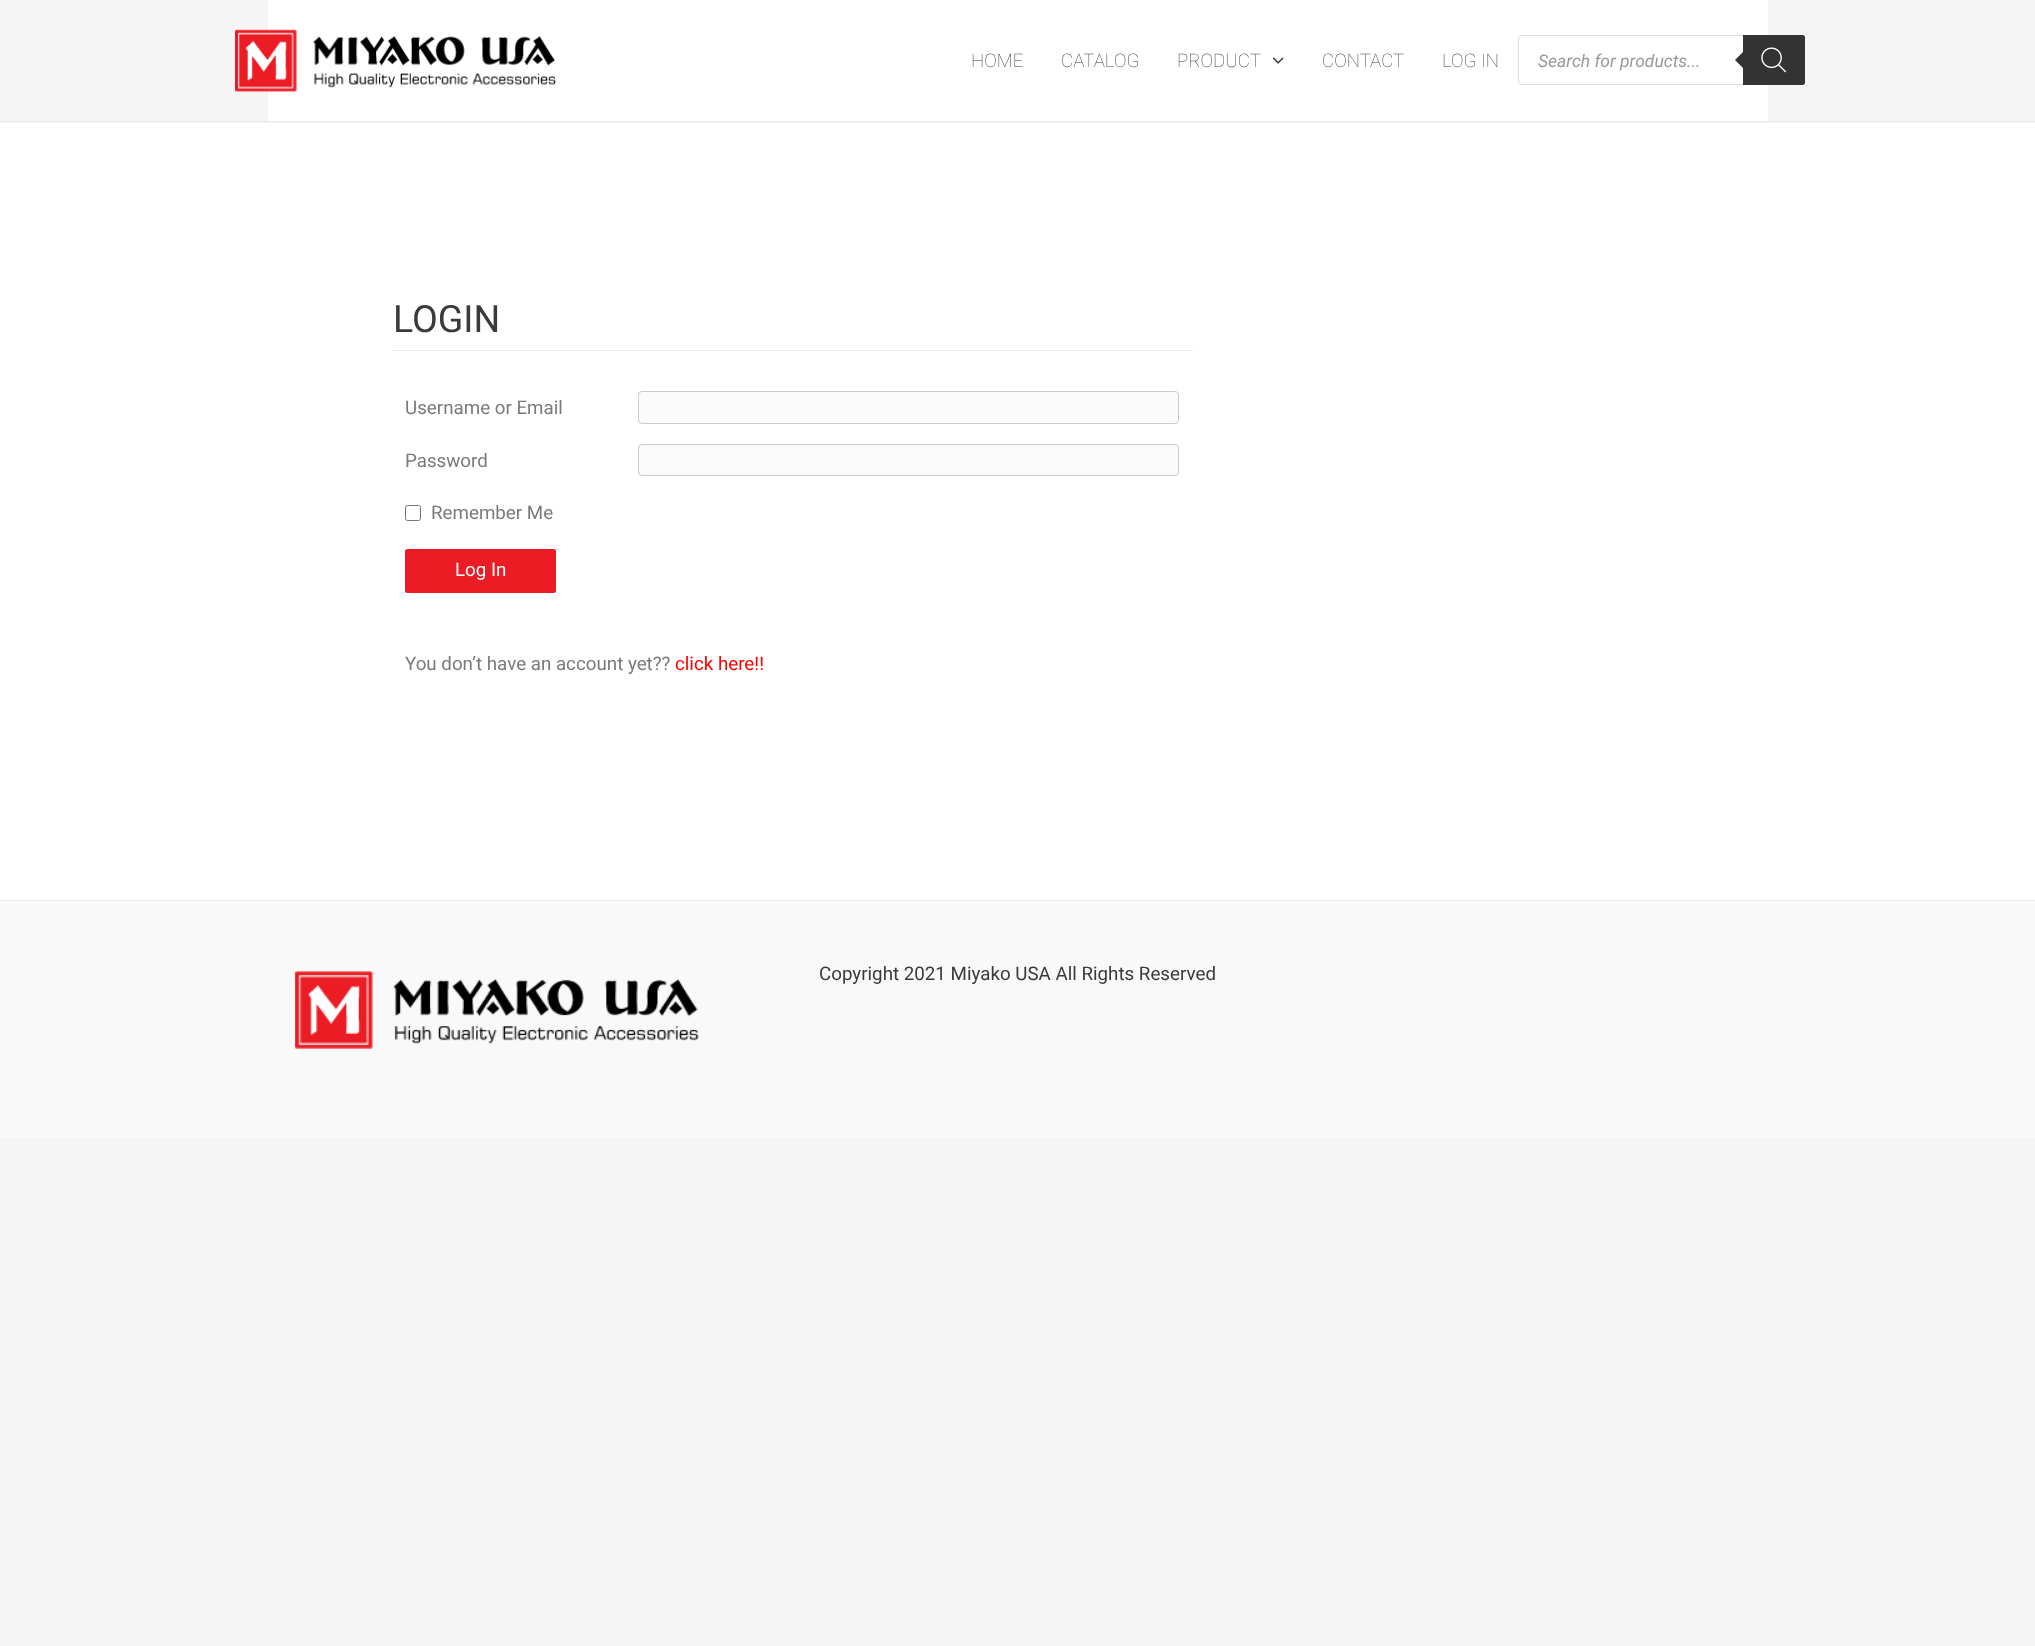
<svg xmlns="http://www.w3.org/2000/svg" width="2035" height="1646">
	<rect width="100%" height="100%" fill="#F5F5F5" />
	<rect x="0" y="121" width="2035" height="1" fill="#EAEAEA" />
	<rect x="268" y="0" width="1500" height="121" fill="#FFFFFF" />
	<image x="235" y="29" width="321" height="63" href="assets/img1.png" />
	<g font-family="Roboto" font-size="18.75" font-weight="100" fill="#3A3A3A">
		<text x="971" y="67">HOME</text>
		<text x="1061" y="67">CATALOG</text>
		<text x="1177" y="67">PRODUCT</text>
	</g>
	<image x="1273" y="57" width="11" height="7" href="assets/img2.png" />
	<g font-family="Roboto" font-size="18.75" font-weight="100" fill="#3A3A3A">
		<text x="1322" y="67">CONTACT</text>
		<text x="1442" y="67">LOG IN</text>
	</g>
	<rect x="1518.5" y="35.5" width="286" height="49" rx="3.5" fill="#FFFFFF" stroke="#DDDDDD" />
	<text x="1538" y="67" font-family="Roboto" font-size="17.5" font-style="italic" fill="#999999">Search for products...</text>
	<path d="M1743 35H1802.5C1804 35 1805 36 1805 37.5V82.5C1805 84 1804 85 1802.5 85H1743Z" fill="#333333" />
	<path d="M1745 50V70L1735 60Z" fill="#333333" />
	<image x="1761" y="47" width="25" height="26" href="assets/img3.png" />
	<rect x="0" y="123" width="2035" height="777" fill="#FFFFFF" />
	<rect x="393" y="350" width="800" height="1" fill="#EAEAEA" />
	<text x="393" y="332" font-family="Roboto" font-size="37.5" fill="#3A3A3A">LOGIN</text>
	<text x="405" y="414" font-family="Roboto" font-size="18.75" fill="#7A7A7A">Username or Email</text>
	<rect x="638.5" y="391.5" width="540" height="32" rx="3.5" fill="#FAFAFA" stroke="#CCCCCC" />
	<text x="405" y="467" font-family="Roboto" font-size="18.75" fill="#7A7A7A">Password</text>
	<rect x="638.5" y="444.5" width="540" height="31" rx="3.5" fill="#FAFAFA" stroke="#CCCCCC" />
	<rect x="405.5" y="505.5" width="15" height="15" rx="2" fill="none" stroke="#767676" />
	<text x="431" y="519" font-family="Roboto" font-size="18.75" fill="#7A7A7A">Remember Me</text>
	<rect x="405" y="549" width="151" height="44" rx="2.5" fill="#EB1C24" />
	<text x="455" y="576" font-family="Roboto" font-size="18.75" fill="#FFFFFF">Log In</text>
	<text x="405" y="670" font-family="Roboto" font-size="18.75" fill="#7A7A7A">You don’t have an account yet??</text>
	<text x="675" y="670" font-family="Roboto" font-size="18.75" fill="#FF0000">click here!!</text>
	<rect x="0" y="901" width="2035" height="237" fill="#F9F9F9" />
	<rect x="0" y="900" width="2035" height="1" fill="#E6E6E6" />
	<image x="294" y="971" width="405" height="78" href="assets/img4.png" />
	<text x="819" y="980" font-family="Roboto" font-size="18.75" fill="#3A3A3A">Copyright 2021 Miyako USA All Rights Reserved</text>
</svg>
